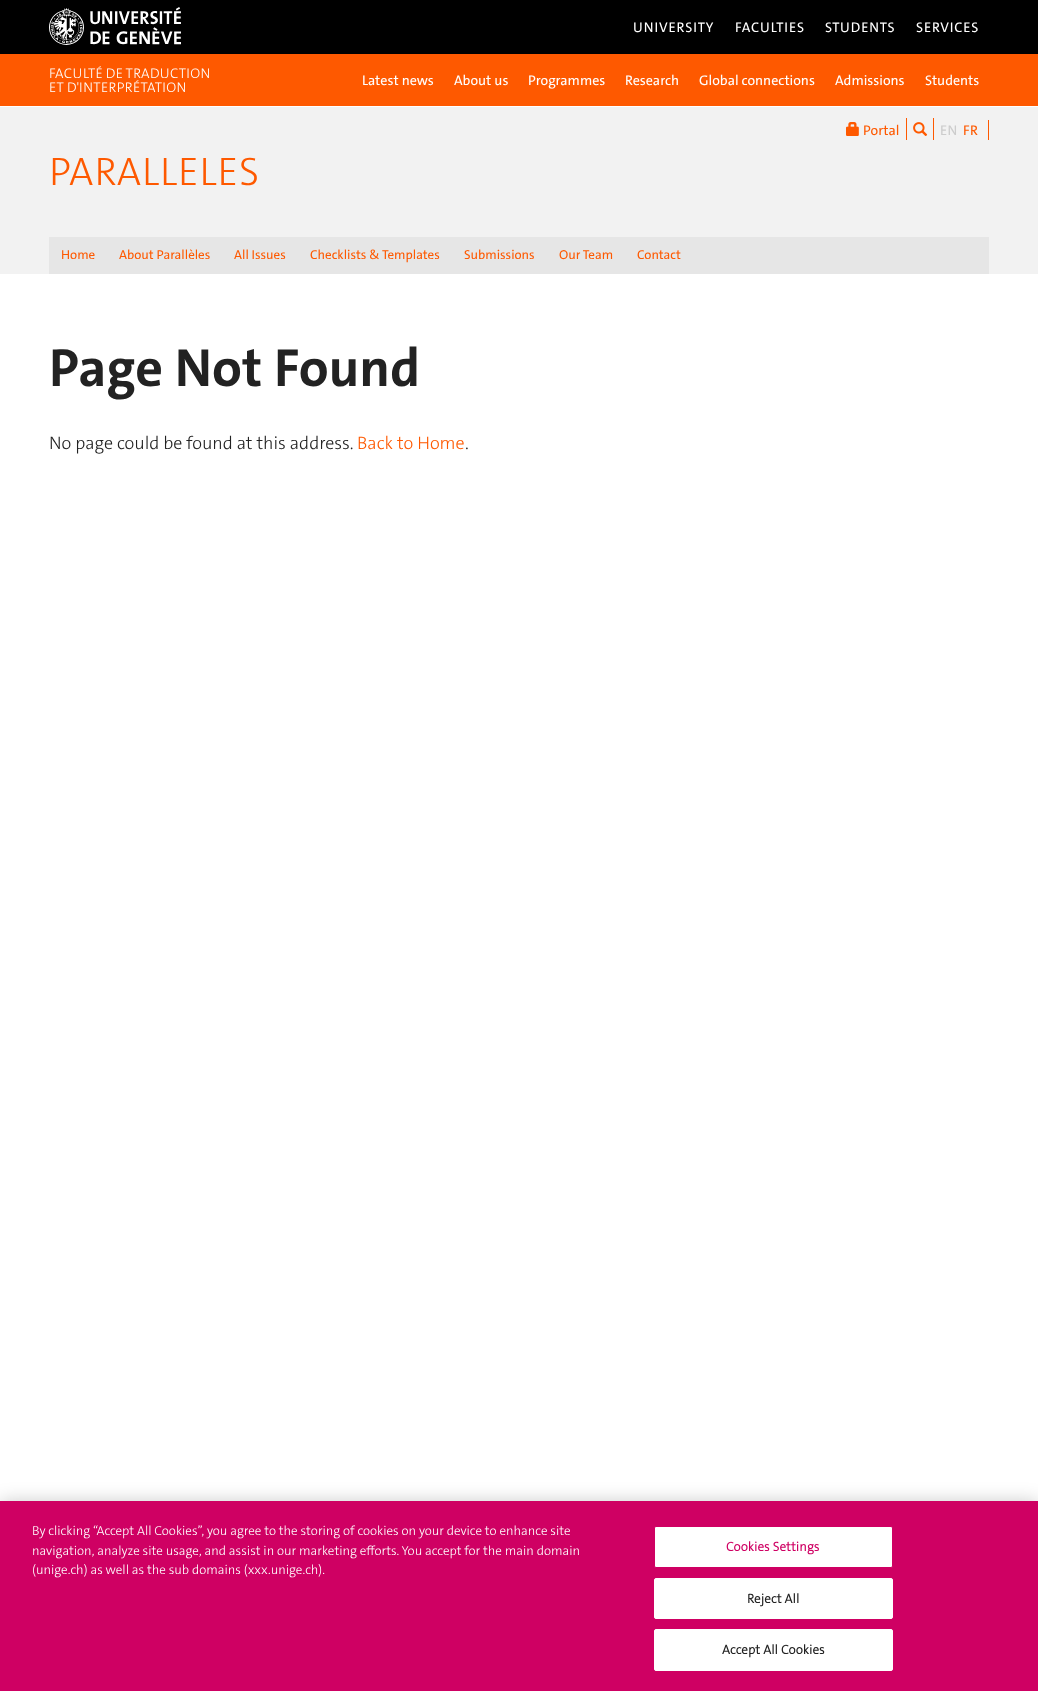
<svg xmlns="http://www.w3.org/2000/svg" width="1038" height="1691">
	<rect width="100%" height="100%" fill="#FFFFFF" />
	<rect x="0" y="0" width="1038" height="54" fill="#000000" />
	<image x="49" y="7" width="132" height="38" href="assets/img1.png" />
	<g font-family="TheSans" font-size="14" letter-spacing="0.5" fill="#FFFFFF">
		<text x="633" y="32">UNIVERSITY</text>
		<text x="735" y="32">FACULTIES</text>
		<text x="825" y="32">STUDENTS</text>
		<text x="916" y="32">SERVICES</text>
	</g>
	<rect x="0" y="54" width="1038" height="52" fill="#FE5900" />
	<g font-family="TheSans" font-size="14" font-weight="300" fill="#FFFFFF">
		<text x="49" y="78">FACULTÉ DE TRADUCTION</text>
		<text x="49" y="92">ET D'INTERPRÉTATION</text>
	</g>
	<g font-family="TheSans" font-size="14" fill="#FFFFFF">
		<text x="362" y="85">Latest news</text>
		<text x="454" y="85">About us</text>
		<text x="528" y="85">Programmes</text>
		<text x="625" y="85">Research</text>
		<text x="699" y="85">Global connections</text>
		<text x="835" y="85">Admissions</text>
		<text x="925" y="85">Students</text>
	</g>
	<rect x="0" y="107" width="1038" height="167" fill="#F2F2F2" />
	<rect x="906" y="118" width="1" height="22" fill="#FE5900" />
	<image x="846" y="122" width="13" height="14" href="assets/img2.png" />
	<text x="863" y="135" font-family="TheSans" font-size="14" fill="#FE5900">Portal</text>
	<rect x="933" y="118" width="1" height="22" fill="#FE5900" />
	<image x="913" y="122" width="15" height="14" href="assets/img3.png" />
	<rect x="988" y="120" width="1" height="20" fill="#FE5900" />
	<text x="940" y="135" font-family="TheSans" font-size="14" fill="#CCCCCC">EN</text>
	<text x="963" y="135" font-family="TheSans" font-size="14" fill="#FE5900">FR</text>
	<text x="49" y="185" font-family="TheSans" font-size="40" font-weight="300" fill="#FE5900">PARALLELES</text>
	<rect x="49" y="237" width="940" height="37" fill="#E6E6E6" />
	<g font-family="TheSans" font-size="13" fill="#FE5900">
		<text x="61" y="259">Home</text>
		<text x="119" y="259">About Parallèles</text>
		<text x="234" y="259">All Issues</text>
		<text x="310" y="259">Checklists &amp; Templates</text>
		<text x="464" y="259">Submissions</text>
		<text x="559" y="259">Our Team</text>
		<text x="637" y="259">Contact</text>
	</g>
	<text x="49" y="386" font-family="TheSans" font-size="54" font-weight="700" fill="#222222">Page Not Found</text>
	<text x="49" y="449" font-family="TheSans" font-size="18" font-weight="300" fill="#222222">No page could be found at this address.</text>
	<text x="357" y="449" font-family="TheSans" font-size="18" font-weight="300" fill="#FE5900">Back to Home</text>
	<text x="465" y="449" font-family="TheSans" font-size="18" font-weight="300" fill="#222222">.</text>
	<rect x="0" y="1501" width="1038" height="190" fill="#000000" fill-opacity="0.2" filter="blur(9px)" />
	<rect x="0" y="1501" width="1038" height="190" fill="#CF0063" />
	<g font-family="TheSans" font-size="13" font-weight="300" fill="#FFFFFF">
		<text x="32" y="1535">By clicking “Accept All Cookies”, you agree to the storing of cookies on your device to enhance site</text>
		<text x="32" y="1555">navigation, analyze site usage, and assist in our marketing efforts. You accept for the main domain</text>
		<text x="32" y="1574">(unige.ch) as well as the sub domains (xxx.unige.ch).</text>
	</g>
	<rect x="654.5" y="1526.5" width="238" height="41" rx="1.5" fill="#FFFFFF" stroke="#CF0063" />
	<text x="726" y="1551" font-family="'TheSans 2'" font-size="13" font-weight="700" letter-spacing="0.1" fill="#CF0063">Cookies Settings</text>
	<rect x="654.5" y="1578.5" width="238" height="40" rx="1.5" fill="#FFFFFF" stroke="#FFFFFF" />
	<text x="747" y="1603" font-family="'TheSans 2'" font-size="13" font-weight="700" letter-spacing="0.1" fill="#222222">Reject All</text>
	<rect x="654.5" y="1629.5" width="238" height="41" rx="1.5" fill="#FFFFFF" stroke="#FFFFFF" />
	<text x="722" y="1654" font-family="'TheSans 2'" font-size="13" font-weight="700" letter-spacing="0.1" fill="#222222">Accept All Cookies</text>
</svg>
